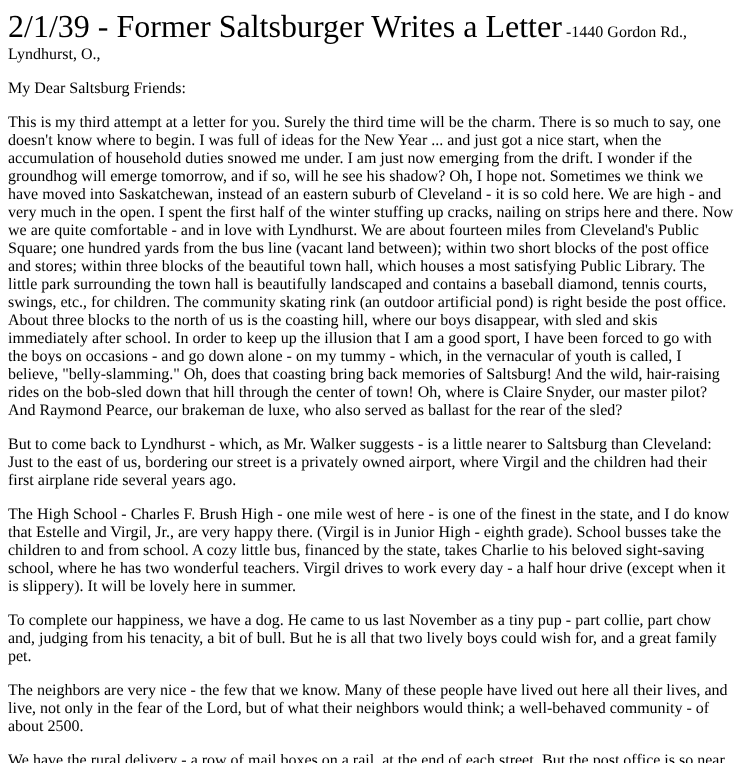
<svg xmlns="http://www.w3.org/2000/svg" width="743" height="763">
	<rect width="100%" height="100%" fill="#FFFFFF" />
	<text x="8" y="37" font-family="Liberation Serif" font-size="32" fill="#000000">2/1/39 - Former Saltsburger Writes a Letter</text>
	<g font-family="Liberation Serif" font-size="16" fill="#000000">
		<text x="566" y="37">-1440 Gordon Rd.,</text>
		<text x="8" y="59">Lyndhurst, O.,</text>
		<text x="8" y="93">My Dear Saltsburg Friends:</text>
		<text x="8" y="127">This is my third attempt at a letter for you. Surely the third time will be the charm. There is so much to say, one</text>
		<text x="8" y="145">doesn't know where to begin. I was full of ideas for the New Year ... and just got a nice start, when the</text>
		<text x="8" y="163">accumulation of household duties snowed me under. I am just now emerging from the drift. I wonder if the</text>
		<text x="8" y="181">groundhog will emerge tomorrow, and if so, will he see his shadow? Oh, I hope not. Sometimes we think we</text>
		<text x="8" y="199">have moved into Saskatchewan, instead of an eastern suburb of Cleveland - it is so cold here. We are high - and</text>
		<text x="8" y="217">very much in the open. I spent the first half of the winter stuffing up cracks, nailing on strips here and there. Now</text>
		<text x="8" y="235">we are quite comfortable - and in love with Lyndhurst. We are about fourteen miles from Cleveland's Public</text>
		<text x="8" y="253">Square; one hundred yards from the bus line (vacant land between); within two short blocks of the post office</text>
		<text x="8" y="271">and stores; within three blocks of the beautiful town hall, which houses a most satisfying Public Library. The</text>
		<text x="8" y="289">little park surrounding the town hall is beautifully landscaped and contains a baseball diamond, tennis courts,</text>
		<text x="8" y="307">swings, etc., for children. The community skating rink (an outdoor artificial pond) is right beside the post office.</text>
		<text x="8" y="325">About three blocks to the north of us is the coasting hill, where our boys disappear, with sled and skis</text>
		<text x="8" y="343">immediately after school. In order to keep up the illusion that I am a good sport, I have been forced to go with</text>
		<text x="8" y="361">the boys on occasions - and go down alone - on my tummy - which, in the vernacular of youth is called, I</text>
		<text x="8" y="379">believe, "belly-slamming." Oh, does that coasting bring back memories of Saltsburg! And the wild, hair-raising</text>
		<text x="8" y="397">rides on the bob-sled down that hill through the center of town! Oh, where is Claire Snyder, our master pilot?</text>
		<text x="8" y="415">And Raymond Pearce, our brakeman de luxe, who also served as ballast for the rear of the sled?</text>
		<text x="8" y="449">But to come back to Lyndhurst - which, as Mr. Walker suggests - is a little nearer to Saltsburg than Cleveland:</text>
		<text x="8" y="467">Just to the east of us, bordering our street is a privately owned airport, where Virgil and the children had their</text>
		<text x="8" y="485">first airplane ride several years ago.</text>
		<text x="8" y="519">The High School - Charles F. Brush High - one mile west of here - is one of the finest in the state, and I do know</text>
		<text x="8" y="537">that Estelle and Virgil, Jr., are very happy there. (Virgil is in Junior High - eighth grade). School busses take the</text>
		<text x="8" y="555">children to and from school.</text>
		<text x="192" y="555">A cozy little bus, financed by the state, takes Charlie to his beloved sight-saving</text>
		<text x="8" y="573">school, where he has two wonderful teachers. Virgil drives to work every day - a half hour drive (except when it</text>
		<text x="8" y="591">is slippery). It will be lovely here in summer.</text>
		<text x="8" y="625">To complete our happiness, we have a dog. He came to us last November as a tiny pup - part collie, part chow</text>
		<text x="8" y="643">and, judging from his tenacity, a bit of bull. But he is all that two lively boys could wish for, and a great family</text>
		<text x="8" y="661">pet.</text>
		<text x="8" y="695">The neighbors are very nice - the few that we know. Many of these people have lived out here all their lives, and</text>
		<text x="8" y="713">live, not only in the fear of the Lord, but of what their neighbors would think; a well-behaved community - of</text>
		<text x="8" y="731">about 2500.</text>
		<text x="8" y="765">We have the rural delivery - a row of mail boxes on a rail, at the end of each street</text>
		<text x="542" y="765">But the post office is so near</text>
	</g>
</svg>
